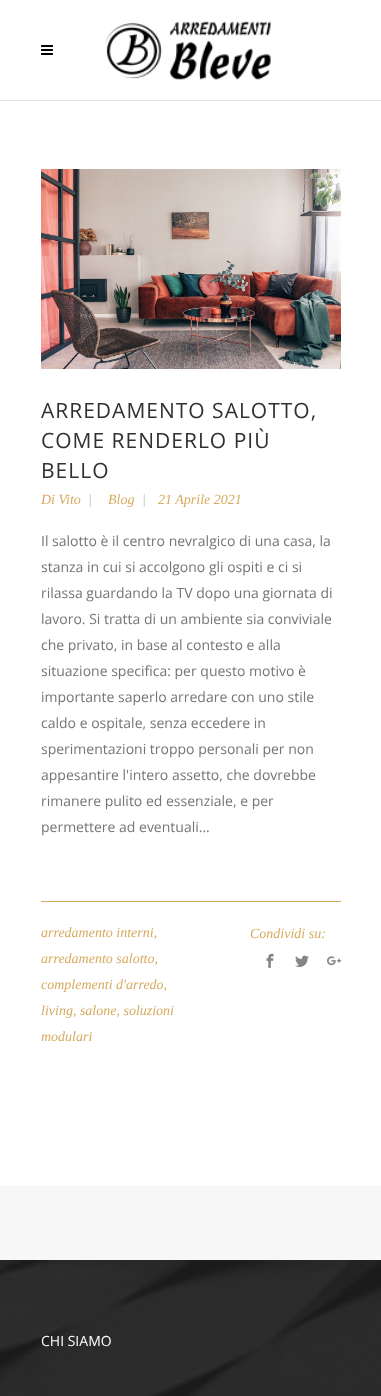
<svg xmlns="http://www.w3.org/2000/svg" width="381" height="1396">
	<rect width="100%" height="100%" fill="#FFFFFF" />
	<rect x="0" y="100" width="381" height="1" fill="#E0E0E0" />
	<image x="41" y="45" width="12" height="10" href="assets/img1.png" />
	<image x="105" y="21" width="166" height="59" href="assets/img2.png" />
	<image x="41" y="169" width="300" height="200" href="assets/img3.png" />
	<g font-family="Open Sans" font-size="21" letter-spacing="1" fill="#313131">
		<text x="41" y="418">ARREDAMENTO SALOTTO,</text>
		<text x="41" y="448">COME RENDERLO PIÙ</text>
		<text x="41" y="478">BELLO</text>
	</g>
	<text x="41" y="504" font-family="Liberation Serif" font-size="14" font-style="italic" fill="#D6AB60">Di Vito</text>
	<text x="88" y="504" font-family="Liberation Serif" font-size="14" font-style="italic" fill="#B7B7B7">|</text>
	<text x="108" y="504" font-family="Liberation Serif" font-size="14" font-style="italic" fill="#D6AB60">Blog</text>
	<text x="142" y="504" font-family="Liberation Serif" font-size="14" font-style="italic" fill="#B7B7B7">|</text>
	<text x="158" y="504" font-family="Liberation Serif" font-size="14" font-style="italic" fill="#D6AB60">21 Aprile 2021</text>
	<g font-family="Open Sans" font-size="14" fill="#757575">
		<text x="41" y="546">Il salotto è il centro nevralgico di una casa, la</text>
		<text x="41" y="572">stanza in cui si accolgono gli ospiti e ci si</text>
		<text x="41" y="598">rilassa guardando la TV dopo una giornata di</text>
		<text x="41" y="624">lavoro. Si tratta di un ambiente sia conviviale</text>
		<text x="41" y="650">che privato, in base al contesto e alla</text>
		<text x="41" y="676">situazione specifica: per questo motivo è</text>
		<text x="41" y="702">importante saperlo arredare con uno stile</text>
		<text x="41" y="728">caldo e ospitale, senza eccedere in</text>
		<text x="41" y="754">sperimentazioni troppo personali per non</text>
		<text x="41" y="780">appesantire l'intero assetto, che dovrebbe</text>
		<text x="41" y="806">rimanere pulito ed essenziale, e per</text>
		<text x="41" y="832">permettere ad eventuali...</text>
	</g>
	<rect x="41" y="901" width="300" height="1" fill="#D6AB60" />
	<g font-family="Liberation Serif" font-size="14" font-style="italic" fill="#D6AB60">
		<text x="41" y="937">arredamento interni,</text>
		<text x="41" y="963">arredamento salotto,</text>
		<text x="41" y="989">complementi d'arredo,</text>
		<text x="41" y="1015">living, salone, soluzioni</text>
		<text x="41" y="1041">modulari</text>
		<text x="250" y="938">Condividi su:</text>
	</g>
	<image x="266" y="953" width="8" height="15" href="assets/img4.png" />
	<image x="295" y="955" width="14" height="12" href="assets/img5.png" />
	<image x="327" y="956" width="14" height="10" href="assets/img6.png" />
	<rect x="0" y="1186" width="381" height="74" fill="#F7F7F7" />
	<image x="0" y="1260" width="381" height="136" href="assets/img7.png" />
	<text x="41" y="1346" font-family="Open Sans" font-size="14" fill="#FFFFFF">CHI SIAMO</text>
</svg>
